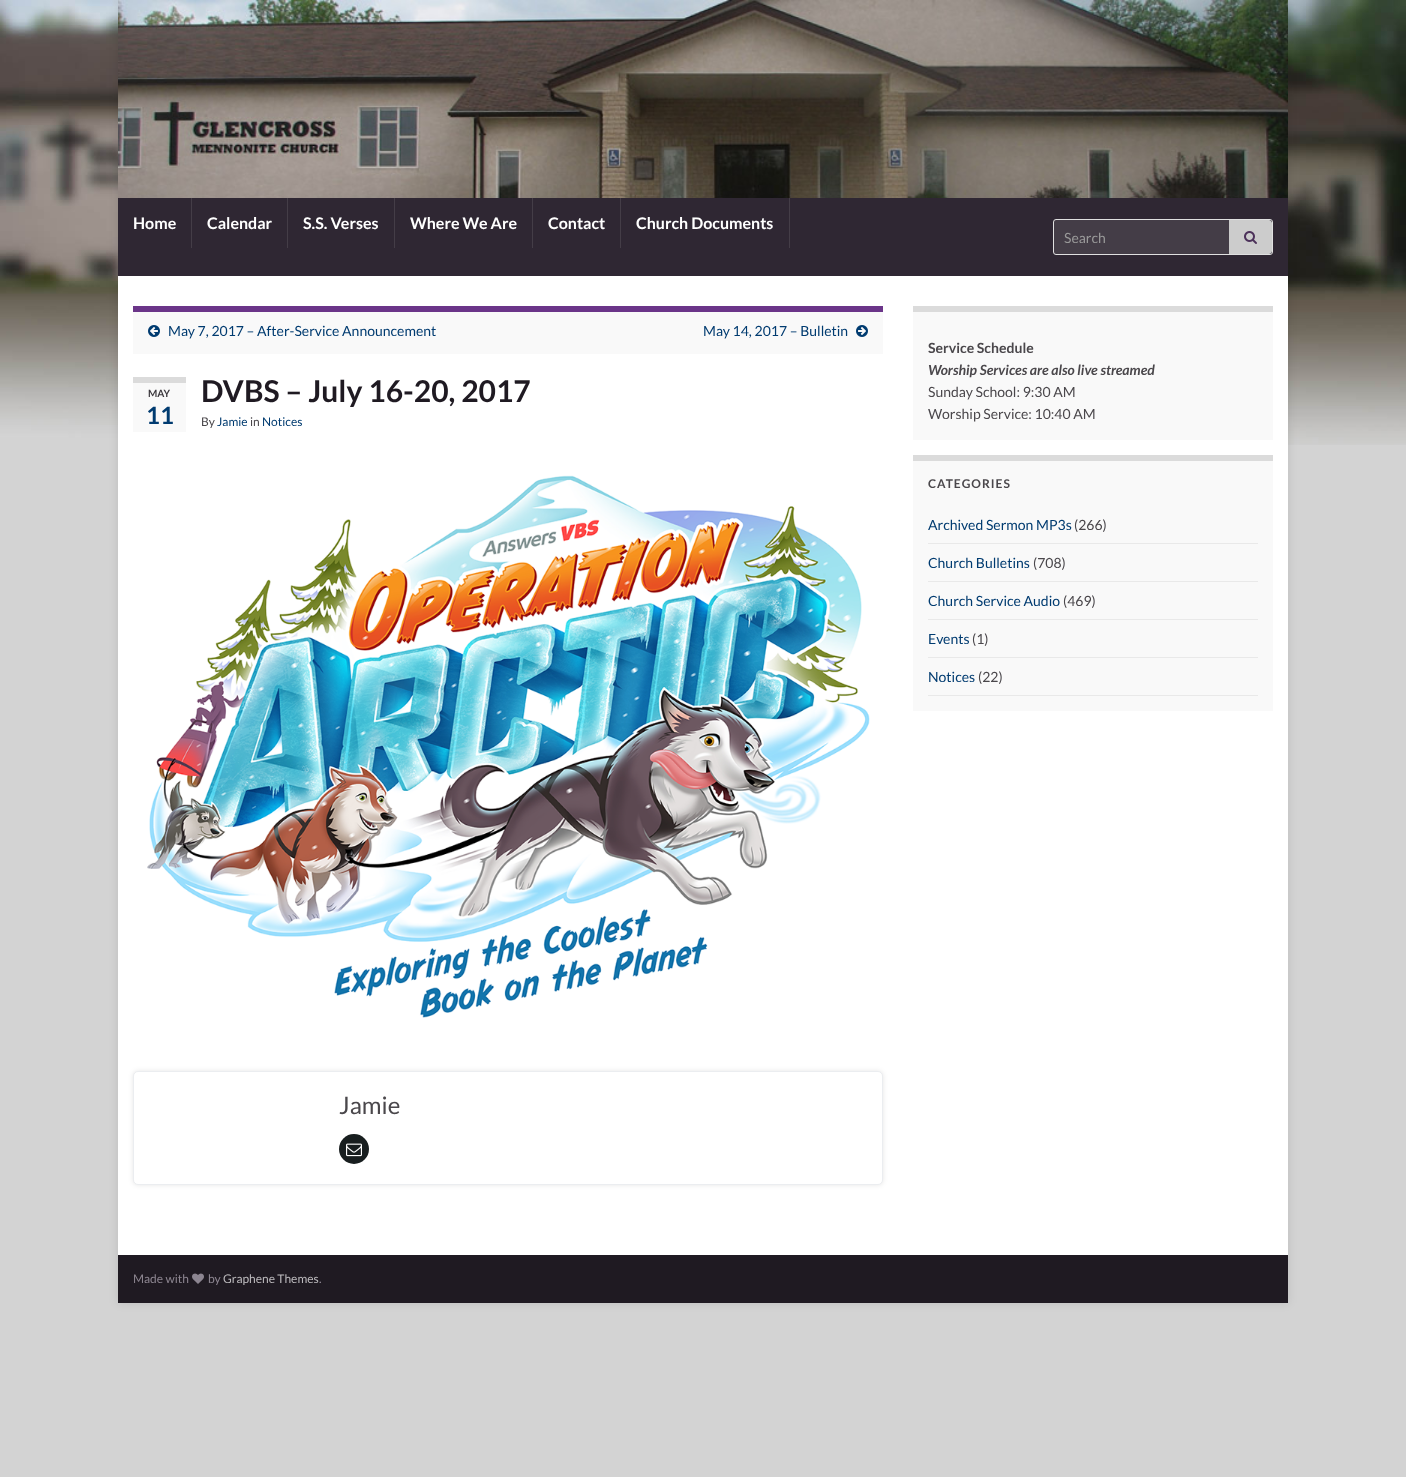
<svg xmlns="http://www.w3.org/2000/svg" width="1406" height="1477">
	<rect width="100%" height="100%" fill="#D3D3D3" />
	<image x="0" y="0" width="1406" height="445" href="assets/img1.png" />
	<rect x="118" y="0" width="1170" height="1303" fill="#000000" fill-opacity="0.1" filter="blur(5px)" />
	<image x="118" y="0" width="1170" height="198" href="assets/img2.png" />
	<rect x="118" y="198" width="1170" height="78" fill="#2F2733" />
	<rect x="191" y="198" width="1" height="50" fill="#443D47" />
	<text x="133" y="229" font-family="Lato" font-size="16" font-weight="700" fill="#FFFFFF">Home</text>
	<rect x="287" y="198" width="1" height="50" fill="#443D47" />
	<text x="207" y="229" font-family="Lato" font-size="16" font-weight="700" fill="#FFFFFF">Calendar</text>
	<rect x="394" y="198" width="1" height="50" fill="#443D47" />
	<text x="303" y="229" font-family="Lato" font-size="16" font-weight="700" fill="#FFFFFF">S.S. Verses</text>
	<rect x="532" y="198" width="1" height="50" fill="#443D47" />
	<text x="410" y="229" font-family="Lato" font-size="16" font-weight="700" fill="#FFFFFF">Where We Are</text>
	<rect x="620" y="198" width="1" height="50" fill="#443D47" />
	<text x="548" y="229" font-family="Lato" font-size="16" font-weight="700" fill="#FFFFFF">Contact</text>
	<rect x="789" y="198" width="1" height="50" fill="#443D47" />
	<text x="636" y="229" font-family="Lato" font-size="16" font-weight="700" fill="#FFFFFF">Church Documents</text>
	<rect x="1053.5" y="219.5" width="219" height="35" rx="2.5" fill="none" stroke="#E0E0E0" />
	<rect x="1054" y="220" width="175" height="34" fill="#FFFFFF" fill-opacity="0.1" />
	<text x="1064" y="243" font-family="Lato" font-size="14" fill="#999999">Search</text>
	<path d="M1229 220H1269C1270.5 220 1272 221.5 1272 223V251C1272 252.5 1270.5 254 1269 254H1229Z" fill="#CCCCCC" />
	<image x="1244" y="231" width="13" height="13" href="assets/img3.png" />
	<rect x="118" y="276" width="1170" height="979" fill="#FFFFFF" />
	<rect x="133" y="312" width="750" height="42" fill="#F9F9F9" />
	<rect x="133" y="306" width="750" height="6" fill="#6B3589" />
	<image x="148" y="325" width="12" height="12" href="assets/img4.png" />
	<g font-family="Lato" font-size="14" fill="#003B70">
		<text x="168" y="336">May 7, 2017 – After-Service Announcement</text>
		<text x="703" y="336">May 14, 2017 – Bulletin</text>
	</g>
	<image x="856" y="325" width="12" height="12" href="assets/img5.png" />
	<rect x="133" y="383" width="53" height="49" fill="#F9F9F9" />
	<rect x="133" y="377" width="53" height="6" fill="#DBDBDB" />
	<text x="148" y="397" font-family="Lato" font-size="10" font-weight="700" fill="#3B383D">MAY</text>
	<text x="146" y="424" font-family="Lato" font-size="24" font-weight="700" fill="#003B70">11</text>
	<text x="201" y="402" font-family="Lato" font-size="30" font-weight="700" fill="#1F1A22">DVBS – July 16-20, 2017</text>
	<text x="201" y="426" font-family="Lato" font-size="12" fill="#4A474B">By</text>
	<text x="217" y="426" font-family="Lato" font-size="12" fill="#003B70">Jamie</text>
	<text x="250" y="426" font-family="Lato" font-size="12" fill="#4A474B">in</text>
	<text x="262" y="426" font-family="Lato" font-size="12" fill="#003B70">Notices</text>
	<image x="147" y="475" width="723" height="543" href="assets/img6.png" />
	<rect x="133" y="1071" width="750" height="114" rx="5" fill="#000000" fill-opacity="0.1" filter="blur(2.5px)" />
	<rect x="133.5" y="1071.5" width="749" height="113" rx="4.5" fill="#FFFFFF" stroke="#EBEDF0" />
	<text x="339" y="1114" font-family="Lato" font-size="24" fill="#4A474B">Jamie</text>
	<circle cx="354" cy="1149" r="15" fill="#181E1F" />
	<image x="346" y="1143" width="16" height="14" href="assets/img7.png" />
	<rect x="913" y="312" width="360" height="128" fill="#F9F9F9" />
	<rect x="913" y="306" width="360" height="6" fill="#DBDBDB" />
	<text x="928" y="353" font-family="Lato" font-size="14" font-weight="700" fill="#4A474B">Service Schedule</text>
	<text x="928" y="375" font-family="Lato" font-size="14" font-weight="700" font-style="italic" fill="#4A474B">Worship Services are also live streamed</text>
	<g font-family="Lato" font-size="14" fill="#4A474B">
		<text x="928" y="397">Sunday School: 9:30 AM</text>
		<text x="928" y="419">Worship Service: 10:40 AM</text>
	</g>
	<rect x="913" y="461" width="360" height="250" fill="#F9F9F9" />
	<rect x="913" y="455" width="360" height="6" fill="#DBDBDB" />
	<text x="928" y="488" font-family="Lato" font-size="12" font-weight="700" letter-spacing="1" fill="#4A474B">CATEGORIES</text>
	<rect x="928" y="543" width="330" height="1" fill="#E9E9E9" />
	<text x="928" y="530" font-family="Lato" font-size="14" fill="#003B70">Archived Sermon MP3s</text>
	<text x="1074" y="530" font-family="Lato" font-size="14" fill="#4A474B">(266)</text>
	<rect x="928" y="581" width="330" height="1" fill="#E9E9E9" />
	<text x="928" y="568" font-family="Lato" font-size="14" fill="#003B70">Church Bulletins</text>
	<text x="1033" y="568" font-family="Lato" font-size="14" fill="#4A474B">(708)</text>
	<rect x="928" y="619" width="330" height="1" fill="#E9E9E9" />
	<text x="928" y="606" font-family="Lato" font-size="14" fill="#003B70">Church Service Audio</text>
	<text x="1063" y="606" font-family="Lato" font-size="14" fill="#4A474B">(469)</text>
	<rect x="928" y="657" width="330" height="1" fill="#E9E9E9" />
	<text x="928" y="644" font-family="Lato" font-size="14" fill="#003B70">Events</text>
	<text x="972" y="644" font-family="Lato" font-size="14" fill="#4A474B">(1)</text>
	<rect x="928" y="695" width="330" height="1" fill="#E9E9E9" />
	<text x="928" y="682" font-family="Lato" font-size="14" fill="#003B70">Notices</text>
	<text x="978" y="682" font-family="Lato" font-size="14" fill="#4A474B">(22)</text>
	<rect x="118" y="1255" width="1170" height="48" fill="#1F1A22" />
	<text x="133" y="1283" font-family="Lato" font-size="12" fill="#8D8691">Made with</text>
	<image x="192" y="1273" width="12" height="11" href="assets/img8.png" />
	<text x="208" y="1283" font-family="Lato" font-size="12" fill="#8D8691">by</text>
	<text x="223" y="1283" font-family="Lato" font-size="12" fill="#BCBABD">Graphene Themes</text>
	<text x="319" y="1283" font-family="Lato" font-size="12" fill="#8D8691">.</text>
</svg>
